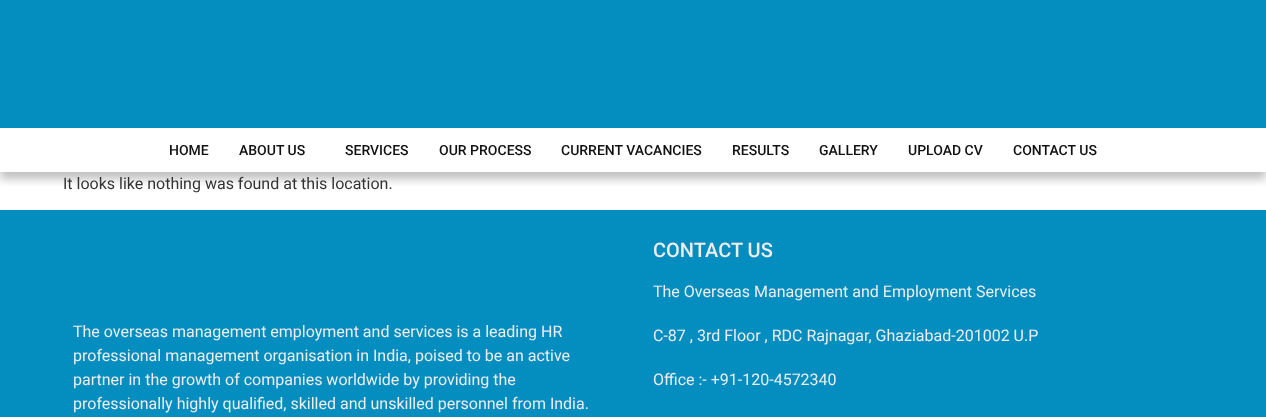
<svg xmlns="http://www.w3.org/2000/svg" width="1266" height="417">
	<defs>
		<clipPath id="clip1"><rect x="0" y="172" width="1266" height="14" /></clipPath>
	</defs>
	<rect width="100%" height="100%" fill="#FFFFFF" />
	<rect x="0" y="0" width="1266" height="128" fill="#048EC0" />
	<g clip-path="url(#clip1)">
		<rect x="0" y="135" width="1266" height="44" fill="#000000" fill-opacity="0.25" filter="blur(5px)" />
	</g>
	<g font-family="Roboto" font-size="14" font-weight="500" fill="#111111">
		<text x="169" y="155">HOME</text>
		<text x="239" y="155">ABOUT US</text>
		<text x="345" y="155">SERVICES</text>
		<text x="439" y="155">OUR PROCESS</text>
		<text x="561" y="155">CURRENT VACANCIES</text>
		<text x="732" y="155">RESULTS</text>
		<text x="819" y="155">GALLERY</text>
		<text x="908" y="155">UPLOAD CV</text>
		<text x="1013" y="155">CONTACT US</text>
	</g>
	<text x="63" y="189" font-family="Roboto" font-size="16" fill="#333333">It looks like nothing was found at this location.</text>
	<rect x="0" y="210" width="1266" height="207" fill="#048EC0" />
	<g font-family="Roboto" font-size="16" fill="#EEEDED">
		<text x="73" y="337">The overseas management employment and services is a leading HR</text>
		<text x="73" y="361">professional management organisation in India, poised to be an active</text>
		<text x="73" y="385">partner in the growth of companies worldwide by providing the</text>
		<text x="73" y="409">professionally highly qualified, skilled and unskilled personnel from India.</text>
	</g>
	<text x="653" y="257" font-family="Roboto" font-size="20" font-weight="500" fill="#EEEDED">CONTACT US</text>
	<g font-family="Roboto" font-size="16" fill="#EEEDED">
		<text x="653" y="297">The Overseas Management and Employment Services</text>
		<text x="653" y="341">C-87 , 3rd Floor , RDC Rajnagar, Ghaziabad-201002 U.P</text>
		<text x="653" y="385">Office :- +91-120-4572340</text>
	</g>
</svg>
